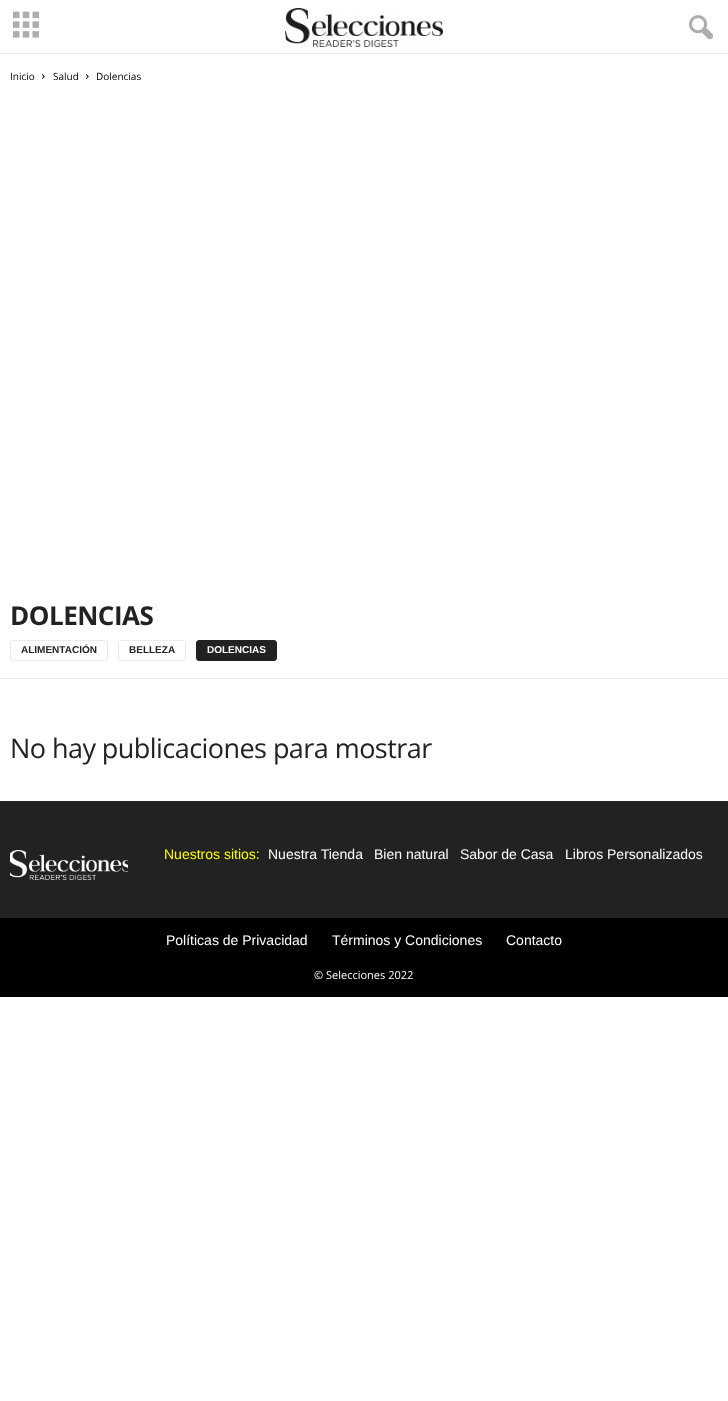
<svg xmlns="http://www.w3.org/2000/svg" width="728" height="1401">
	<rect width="100%" height="100%" fill="#FFFFFF" />
	<image x="13" y="11" width="26" height="27" href="assets/img1.png" />
	<image x="285" y="8" width="158" height="39" href="assets/img2.png" />
	<image x="689" y="15" width="24" height="25" href="assets/img3.png" />
	<rect x="0" y="53" width="728" height="1" fill="#E6E6E6" />
	<text x="10" y="80" font-family="Open Sans" font-size="10" fill="#000000">Inicio</text>
	<image x="42" y="74" width="3" height="5" href="assets/img4.png" />
	<text x="53" y="80" font-family="Open Sans" font-size="10" fill="#000000">Salud</text>
	<image x="86" y="74" width="3" height="5" href="assets/img4.png" />
	<text x="96" y="80" font-family="Open Sans" font-size="10" fill="#000000">Dolencias</text>
	<text x="10" y="625" font-family="Open Sans" font-size="26" font-weight="700" letter-spacing="-0.5" fill="#222222">DOLENCIAS</text>
	<rect x="10.5" y="640.5" width="97" height="20" rx="2.5" fill="none" stroke="#EAEAEA" />
	<text x="21" y="653" font-family="Liberation Sans" font-size="10" font-weight="700" fill="#222222">ALIMENTACIÓN</text>
	<rect x="118.5" y="640.5" width="67" height="20" rx="2.5" fill="none" stroke="#EAEAEA" />
	<text x="129" y="653" font-family="Liberation Sans" font-size="10" font-weight="700" fill="#222222">BELLEZA</text>
	<rect x="196.5" y="640.5" width="80" height="20" rx="2.5" fill="#222222" stroke="#222222" />
	<text x="207" y="653" font-family="Liberation Sans" font-size="10" font-weight="700" fill="#FFFFFF">DOLENCIAS</text>
	<rect x="0" y="678" width="728" height="1" fill="#E6E6E6" />
	<text x="10" y="758" font-family="Open Sans" font-size="27" letter-spacing="-0.55" fill="#222222">No hay publicaciones para mostrar</text>
	<rect x="0" y="801" width="728" height="117" fill="#222222" />
	<image x="10" y="850" width="118" height="30" href="assets/img5.png" />
	<text x="164" y="859" font-family="Liberation Sans" font-size="14" fill="#FFFF00">Nuestros sitios:</text>
	<g font-family="Liberation Sans" font-size="14" fill="#FFFFFF">
		<text x="268" y="859">Nuestra Tienda</text>
		<text x="374" y="859">Bien natural</text>
		<text x="460" y="859">Sabor de Casa</text>
		<text x="565" y="859">Libros Personalizados</text>
	</g>
	<rect x="0" y="918" width="728" height="79" fill="#000000" />
	<g font-family="Liberation Sans" font-size="14" fill="#FFFFFF">
		<text x="166" y="945">Políticas de Privacidad</text>
		<text x="332" y="945">Términos y Condiciones</text>
		<text x="506" y="945">Contacto</text>
	</g>
	<text x="314" y="979" font-family="Open Sans" font-size="11" fill="#FFFFFF">© Selecciones 2022</text>
</svg>
